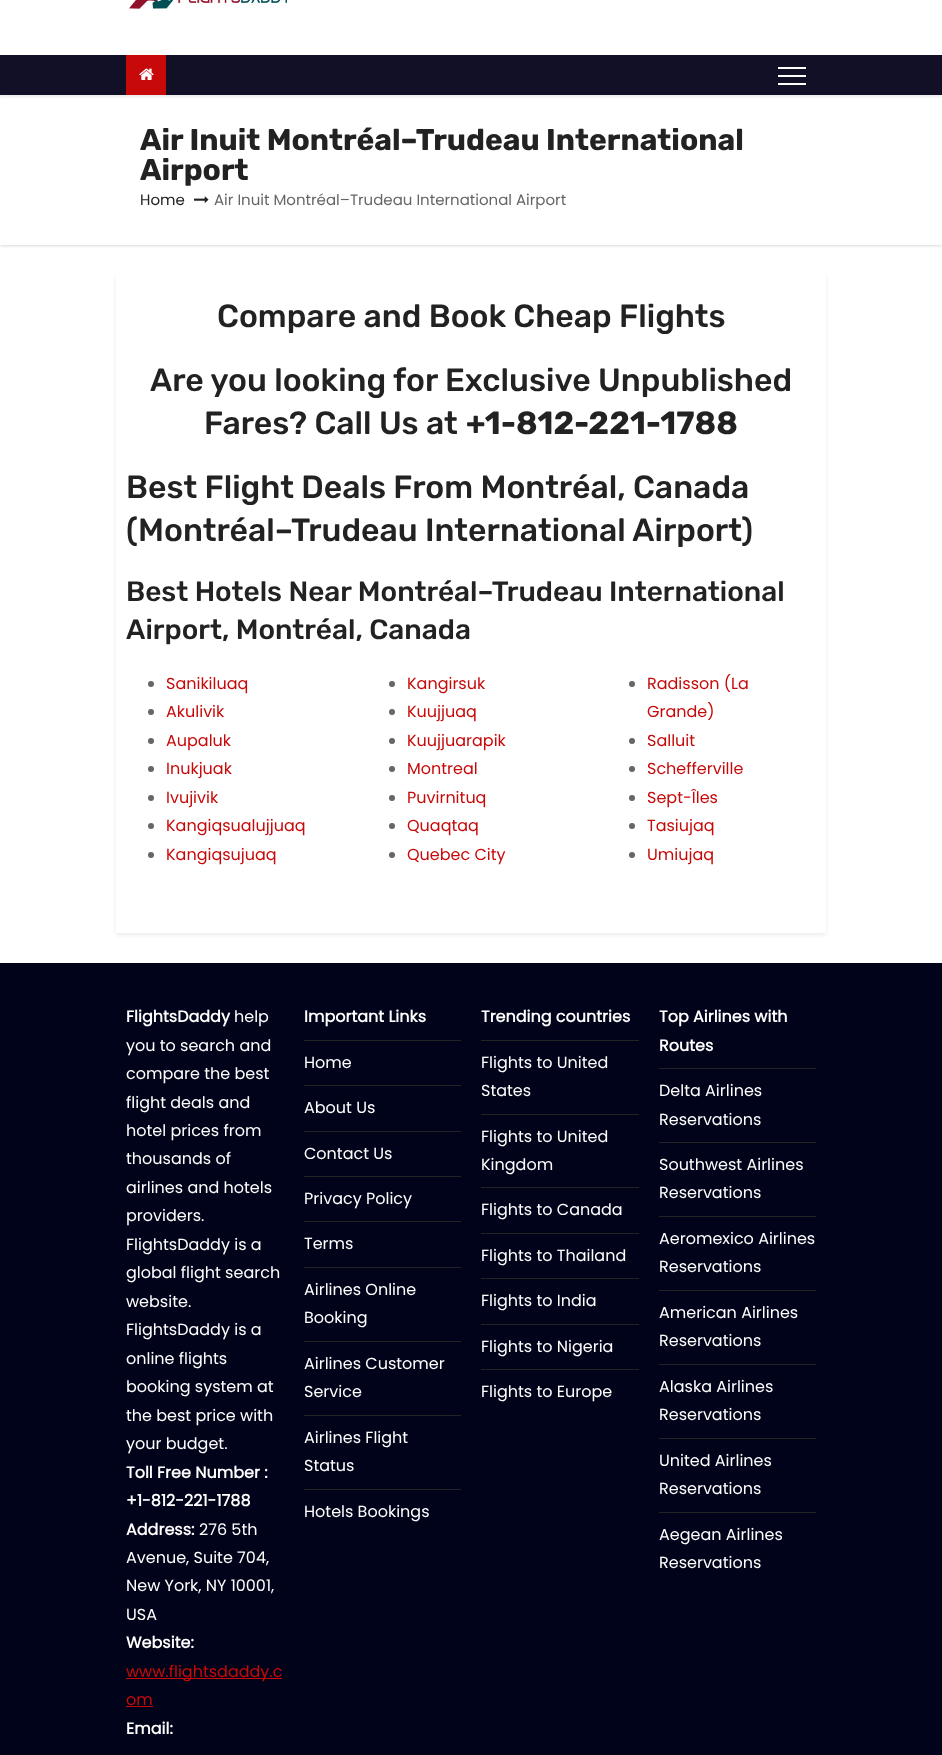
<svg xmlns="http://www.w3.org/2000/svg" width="942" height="1755">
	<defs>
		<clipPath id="clip1"><rect x="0" y="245" width="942" height="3" /></clipPath>
		<clipPath id="clip2"><path d="M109 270H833V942H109ZM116 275H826V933H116Z" clip-rule="evenodd" /></clipPath>
	</defs>
	<rect width="100%" height="100%" fill="#FFFFFF" />
	<image x="129" y="0" width="158" height="9" href="assets/img1.png" />
	<rect x="0" y="57" width="942" height="40" fill="#000000" fill-opacity="0.08" filter="blur(1px)" />
	<g clip-path="url(#clip1)">
		<rect x="0" y="96" width="942" height="150" fill="#000000" fill-opacity="0.15" filter="blur(1.5px)" />
	</g>
	<rect x="0" y="55" width="942" height="40" fill="#121026" />
	<rect x="126" y="55" width="40" height="40" fill="#C70909" />
	<image x="139" y="68" width="15" height="12" href="assets/img2.png" />
	<rect x="778" y="67" width="28" height="2" fill="#FFFFFF" />
	<rect x="778" y="75" width="28" height="2" fill="#FFFFFF" />
	<rect x="778" y="83" width="28" height="2" fill="#FFFFFF" />
	<g font-family="Rubik" font-size="30" font-weight="700" fill="#222222">
		<text x="140" y="150">Air Inuit Montréal–Trudeau International</text>
		<text x="140" y="180">Airport</text>
	</g>
	<text x="140" y="205" font-family="Poppins" font-size="15" fill="#222222">Home</text>
	<image x="194" y="196" width="15" height="7" href="assets/img3.png" />
	<text x="214" y="205" font-family="Poppins" font-size="15" fill="#666666">Air Inuit Montréal–Trudeau International Airport</text>
	<g clip-path="url(#clip2)">
		<rect x="116" y="277" width="710" height="658" fill="#000000" fill-opacity="0.08" filter="blur(2px)" />
	</g>
	<g font-family="Rubik" font-size="32" font-weight="500" fill="#222222">
		<text x="217" y="327">Compare and Book Cheap Flights</text>
		<text x="150" y="391">Are you looking for Exclusive Unpublished</text>
		<text x="204" y="434">Fares? Call Us at</text>
	</g>
	<text x="466" y="434" font-family="Rubik" font-size="32" font-weight="700" fill="#222222">+1-812-221-1788</text>
	<g font-family="Rubik" font-size="32" font-weight="500" fill="#222222">
		<text x="126" y="498">Best Flight Deals From Montréal, Canada</text>
		<text x="126" y="541">(Montréal–Trudeau International Airport)</text>
	</g>
	<g font-family="Rubik" font-size="28" font-weight="500" fill="#222222">
		<text x="126" y="601">Best Hotels Near Montréal–Trudeau International</text>
		<text x="126" y="639">Airport, Montréal, Canada</text>
	</g>
	<circle cx="151" cy="684" r="3" fill="#666666" />
	<text x="166" y="689" font-family="Poppins" font-size="16" fill="#C70909">Sanikiluaq</text>
	<circle cx="151" cy="712" r="3" fill="#666666" />
	<text x="166" y="717" font-family="Poppins" font-size="16" fill="#C70909">Akulivik</text>
	<circle cx="151" cy="741" r="3" fill="#666666" />
	<text x="166" y="746" font-family="Poppins" font-size="16" fill="#C70909">Aupaluk</text>
	<circle cx="151" cy="769" r="3" fill="#666666" />
	<text x="166" y="774" font-family="Poppins" font-size="16" fill="#C70909">Inukjuak</text>
	<circle cx="151" cy="798" r="3" fill="#666666" />
	<text x="166" y="803" font-family="Poppins" font-size="16" fill="#C70909">Ivujivik</text>
	<circle cx="151" cy="826" r="3" fill="#666666" />
	<text x="166" y="831" font-family="Poppins" font-size="16" fill="#C70909">Kangiqsualujjuaq</text>
	<circle cx="151" cy="855" r="3" fill="#666666" />
	<text x="166" y="860" font-family="Poppins" font-size="16" fill="#C70909">Kangiqsujuaq</text>
	<circle cx="392" cy="684" r="3" fill="#666666" />
	<text x="407" y="689" font-family="Poppins" font-size="16" fill="#C70909">Kangirsuk</text>
	<circle cx="392" cy="712" r="3" fill="#666666" />
	<text x="407" y="717" font-family="Poppins" font-size="16" fill="#C70909">Kuujjuaq</text>
	<circle cx="392" cy="741" r="3" fill="#666666" />
	<text x="407" y="746" font-family="Poppins" font-size="16" fill="#C70909">Kuujjuarapik</text>
	<circle cx="392" cy="769" r="3" fill="#666666" />
	<text x="407" y="774" font-family="Poppins" font-size="16" fill="#C70909">Montreal</text>
	<circle cx="392" cy="798" r="3" fill="#666666" />
	<text x="407" y="803" font-family="Poppins" font-size="16" fill="#C70909">Puvirnituq</text>
	<circle cx="392" cy="826" r="3" fill="#666666" />
	<text x="407" y="831" font-family="Poppins" font-size="16" fill="#C70909">Quaqtaq</text>
	<circle cx="392" cy="855" r="3" fill="#666666" />
	<text x="407" y="860" font-family="Poppins" font-size="16" fill="#C70909">Quebec City</text>
	<circle cx="632" cy="684" r="3" fill="#666666" />
	<g font-family="Poppins" font-size="16" fill="#C70909">
		<text x="647" y="689">Radisson (La</text>
		<text x="647" y="717">Grande)</text>
	</g>
	<circle cx="632" cy="741" r="3" fill="#666666" />
	<text x="647" y="746" font-family="Poppins" font-size="16" fill="#C70909">Salluit</text>
	<circle cx="632" cy="769" r="3" fill="#666666" />
	<text x="647" y="774" font-family="Poppins" font-size="16" fill="#C70909">Schefferville</text>
	<circle cx="632" cy="798" r="3" fill="#666666" />
	<text x="647" y="803" font-family="Poppins" font-size="16" fill="#C70909">Sept-Îles</text>
	<circle cx="632" cy="826" r="3" fill="#666666" />
	<text x="647" y="831" font-family="Poppins" font-size="16" fill="#C70909">Tasiujaq</text>
	<circle cx="632" cy="855" r="3" fill="#666666" />
	<text x="647" y="860" font-family="Poppins" font-size="16" fill="#C70909">Umiujaq</text>
	<rect x="0" y="963" width="942" height="792" fill="#000319" />
	<text x="126" y="1022" font-family="Poppins" font-size="16" font-weight="700" fill="#FFFFFF">FlightsDaddy</text>
	<g font-family="Poppins" font-size="16" fill="#FFFFFF">
		<text x="234" y="1022">help</text>
		<text x="126" y="1051">you to search and</text>
		<text x="126" y="1079">compare the best</text>
		<text x="126" y="1108">flight deals and</text>
		<text x="126" y="1136">hotel prices from</text>
		<text x="126" y="1164">thousands of</text>
		<text x="126" y="1193">airlines and hotels</text>
		<text x="126" y="1221">providers.</text>
		<text x="126" y="1250">FlightsDaddy is a</text>
		<text x="126" y="1278">global flight search</text>
		<text x="126" y="1307">website.</text>
		<text x="126" y="1335">FlightsDaddy is a</text>
		<text x="126" y="1364">online flights</text>
		<text x="126" y="1392">booking system at</text>
		<text x="126" y="1421">the best price with</text>
		<text x="126" y="1449">your budget.</text>
	</g>
	<g font-family="Poppins" font-size="16" font-weight="700" fill="#FFFFFF">
		<text x="126" y="1478">Toll Free Number :</text>
		<text x="126" y="1506">+1-812-221-1788</text>
		<text x="126" y="1535">Address:</text>
	</g>
	<g font-family="Poppins" font-size="16" fill="#FFFFFF">
		<text x="199" y="1535">276 5th</text>
		<text x="126" y="1563">Avenue, Suite 704,</text>
		<text x="126" y="1591">New York, NY 10001,</text>
		<text x="126" y="1620">USA</text>
	</g>
	<text x="126" y="1648" font-family="Poppins" font-size="16" font-weight="700" fill="#FFFFFF">Website:</text>
	<rect x="126" y="1678" width="156" height="1" fill="#C70909" />
	<g font-family="Poppins" font-size="16" fill="#C70909">
		<text x="126" y="1677">www.flightsdaddy.c</text>
		<text x="126" y="1705">om</text>
	</g>
	<rect x="126" y="1706" width="27" height="1" fill="#C70909" />
	<text x="126" y="1734" font-family="Poppins" font-size="16" font-weight="700" fill="#FFFFFF">Email:</text>
	<rect x="304" y="1040" width="157" height="1" fill="#242425" />
	<text x="304" y="1022" font-family="Poppins" font-size="16" font-weight="700" fill="#FFFFFF">Important Links</text>
	<rect x="304" y="1085" width="157" height="1" fill="#242425" />
	<text x="304" y="1068" font-family="Poppins" font-size="16" fill="#FFFFFF">Home</text>
	<rect x="304" y="1131" width="157" height="1" fill="#242425" />
	<text x="304" y="1113" font-family="Poppins" font-size="16" fill="#FFFFFF">About Us</text>
	<rect x="304" y="1176" width="157" height="1" fill="#242425" />
	<text x="304" y="1159" font-family="Poppins" font-size="16" fill="#FFFFFF">Contact Us</text>
	<rect x="304" y="1221" width="157" height="1" fill="#242425" />
	<text x="304" y="1204" font-family="Poppins" font-size="16" fill="#FFFFFF">Privacy Policy</text>
	<rect x="304" y="1267" width="157" height="1" fill="#242425" />
	<text x="304" y="1249" font-family="Poppins" font-size="16" fill="#FFFFFF">Terms</text>
	<rect x="304" y="1341" width="157" height="1" fill="#242425" />
	<g font-family="Poppins" font-size="16" fill="#FFFFFF">
		<text x="304" y="1295">Airlines Online</text>
		<text x="304" y="1323">Booking</text>
	</g>
	<rect x="304" y="1415" width="157" height="1" fill="#242425" />
	<g font-family="Poppins" font-size="16" fill="#FFFFFF">
		<text x="304" y="1369">Airlines Customer</text>
		<text x="304" y="1397">Service</text>
	</g>
	<rect x="304" y="1489" width="157" height="1" fill="#242425" />
	<g font-family="Poppins" font-size="16" fill="#FFFFFF">
		<text x="304" y="1443">Airlines Flight</text>
		<text x="304" y="1471">Status</text>
		<text x="304" y="1517">Hotels Bookings</text>
	</g>
	<rect x="481" y="1040" width="158" height="1" fill="#242425" />
	<text x="481" y="1022" font-family="Poppins" font-size="16" font-weight="700" fill="#FFFFFF">Trending countries</text>
	<rect x="481" y="1114" width="158" height="1" fill="#242425" />
	<g font-family="Poppins" font-size="16" fill="#FFFFFF">
		<text x="481" y="1068">Flights to United</text>
		<text x="481" y="1096">States</text>
	</g>
	<rect x="481" y="1187" width="158" height="1" fill="#242425" />
	<g font-family="Poppins" font-size="16" fill="#FFFFFF">
		<text x="481" y="1142">Flights to United</text>
		<text x="481" y="1170">Kingdom</text>
	</g>
	<rect x="481" y="1233" width="158" height="1" fill="#242425" />
	<text x="481" y="1215" font-family="Poppins" font-size="16" fill="#FFFFFF">Flights to Canada</text>
	<rect x="481" y="1278" width="158" height="1" fill="#242425" />
	<text x="481" y="1261" font-family="Poppins" font-size="16" fill="#FFFFFF">Flights to Thailand</text>
	<rect x="481" y="1324" width="158" height="1" fill="#242425" />
	<text x="481" y="1306" font-family="Poppins" font-size="16" fill="#FFFFFF">Flights to India</text>
	<rect x="481" y="1369" width="158" height="1" fill="#242425" />
	<g font-family="Poppins" font-size="16" fill="#FFFFFF">
		<text x="481" y="1352">Flights to Nigeria</text>
		<text x="481" y="1397">Flights to Europe</text>
	</g>
	<rect x="659" y="1068" width="157" height="1" fill="#242425" />
	<g font-family="Poppins" font-size="16" font-weight="700" fill="#FFFFFF">
		<text x="659" y="1022">Top Airlines with</text>
		<text x="659" y="1051">Routes</text>
	</g>
	<rect x="659" y="1142" width="157" height="1" fill="#242425" />
	<g font-family="Poppins" font-size="16" fill="#FFFFFF">
		<text x="659" y="1096">Delta Airlines</text>
		<text x="659" y="1125">Reservations</text>
	</g>
	<rect x="659" y="1216" width="157" height="1" fill="#242425" />
	<g font-family="Poppins" font-size="16" fill="#FFFFFF">
		<text x="659" y="1170">Southwest Airlines</text>
		<text x="659" y="1198">Reservations</text>
	</g>
	<rect x="659" y="1290" width="157" height="1" fill="#242425" />
	<g font-family="Poppins" font-size="16" fill="#FFFFFF">
		<text x="659" y="1244">Aeromexico Airlines</text>
		<text x="659" y="1272">Reservations</text>
	</g>
	<rect x="659" y="1364" width="157" height="1" fill="#242425" />
	<g font-family="Poppins" font-size="16" fill="#FFFFFF">
		<text x="659" y="1318">American Airlines</text>
		<text x="659" y="1346">Reservations</text>
	</g>
	<rect x="659" y="1438" width="157" height="1" fill="#242425" />
	<g font-family="Poppins" font-size="16" fill="#FFFFFF">
		<text x="659" y="1392">Alaska Airlines</text>
		<text x="659" y="1420">Reservations</text>
	</g>
	<rect x="659" y="1512" width="157" height="1" fill="#242425" />
	<g font-family="Poppins" font-size="16" fill="#FFFFFF">
		<text x="659" y="1466">United Airlines</text>
		<text x="659" y="1494">Reservations</text>
		<text x="659" y="1540">Aegean Airlines</text>
		<text x="659" y="1568">Reservations</text>
	</g>
</svg>
